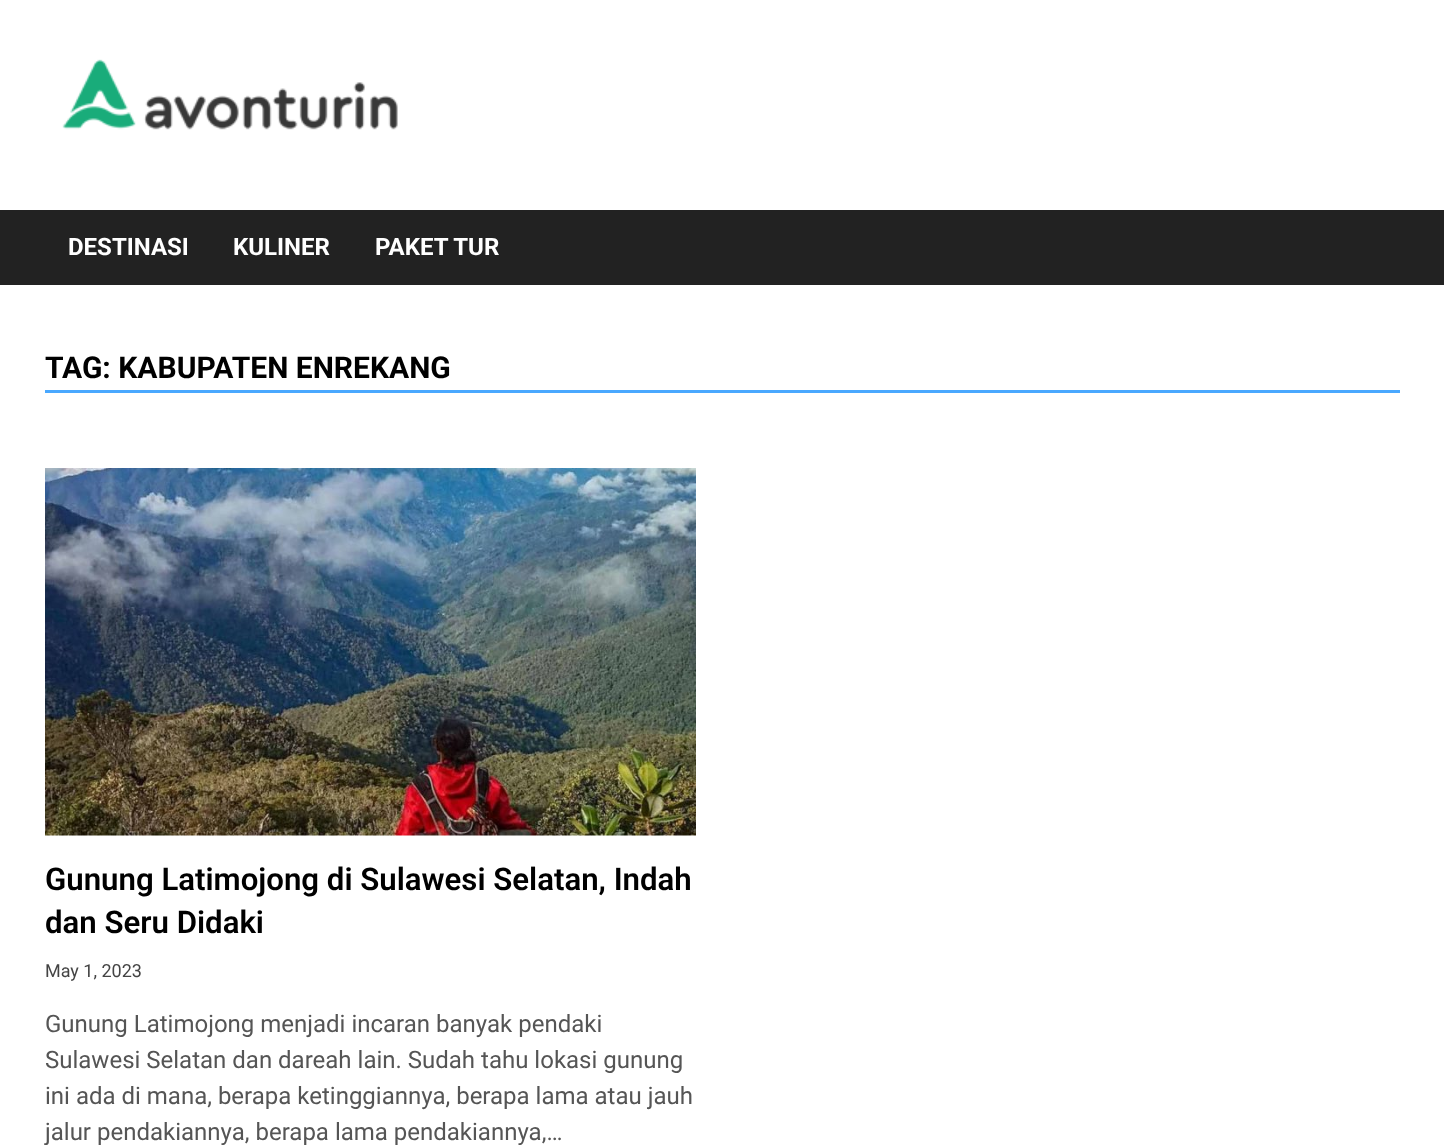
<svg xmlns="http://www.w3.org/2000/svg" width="1444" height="1145">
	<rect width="100%" height="100%" fill="#FFFFFF" />
	<image x="62" y="59" width="336" height="71" href="assets/img1.png" />
	<rect x="0" y="210" width="1444" height="75" fill="#222222" />
	<g font-family="Roboto" font-size="24" font-weight="700" fill="#FFFFFF">
		<text x="68" y="255">DESTINASI</text>
		<text x="233" y="255">KULINER</text>
		<text x="375" y="255">PAKET TUR</text>
	</g>
	<rect x="45" y="390" width="1355" height="3" fill="#49A8FF" />
	<text x="45" y="378" font-family="Roboto" font-size="30" font-weight="700" fill="#000000">TAG: KABUPATEN ENREKANG</text>
	<image x="45" y="468" width="651" height="368" href="assets/img2.png" />
	<g font-family="Roboto" font-size="31.2" font-weight="600" fill="#000000">
		<text x="45" y="890">Gunung Latimojong di Sulawesi Selatan, Indah</text>
		<text x="45" y="933">dan Seru Didaki</text>
	</g>
	<text x="45" y="977" font-family="Roboto" font-size="18" fill="#444444">May 1, 2023</text>
	<g font-family="Roboto" font-size="24" fill="#555555">
		<text x="45" y="1032">Gunung Latimojong menjadi incaran banyak pendaki</text>
		<text x="45" y="1068">Sulawesi Selatan dan dareah lain. Sudah tahu lokasi gunung</text>
		<text x="45" y="1104">ini ada di mana, berapa ketinggiannya, berapa lama atau jauh</text>
		<text x="45" y="1140">jalur pendakiannya, berapa lama pendakiannya,…</text>
	</g>
</svg>
